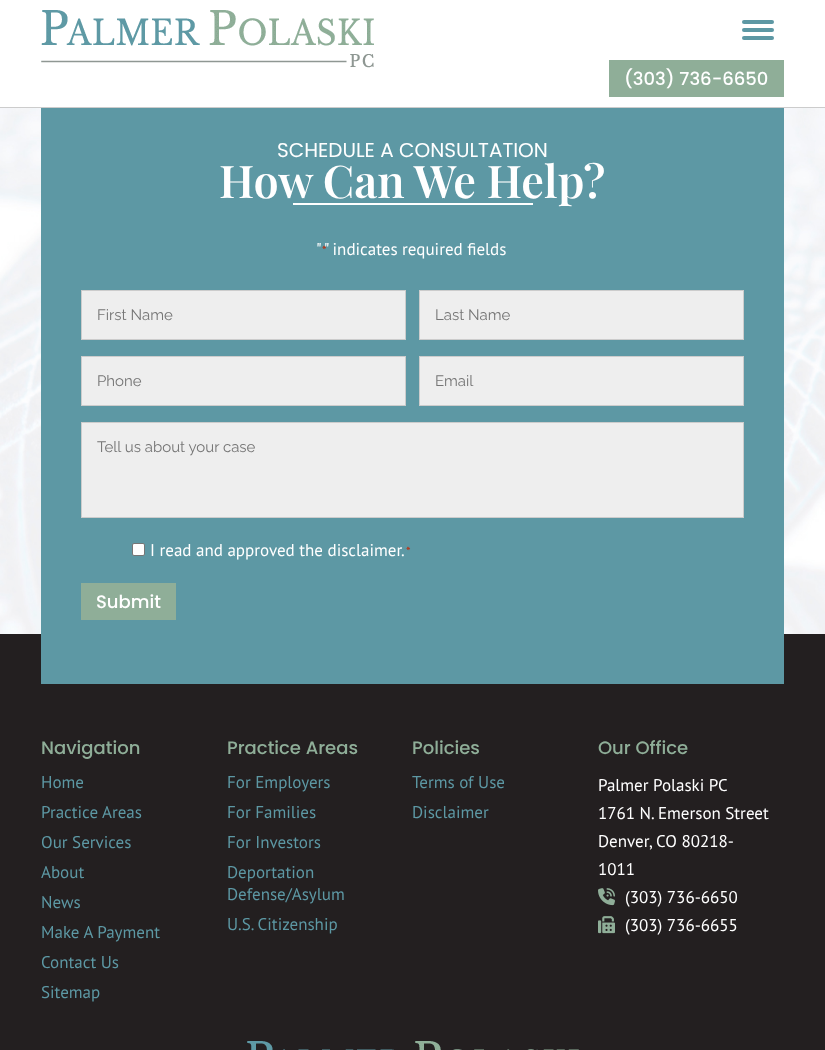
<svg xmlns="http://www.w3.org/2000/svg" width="825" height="1050">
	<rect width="100%" height="100%" fill="#FFFFFF" />
	<rect x="0" y="107" width="825" height="1" fill="#CCCCCC" />
	<image x="41" y="10" width="333" height="58" href="assets/img1.png" />
	<rect x="742" y="20" width="32" height="4" rx="2" fill="#5D98A4" />
	<rect x="742" y="28" width="32" height="4" rx="2" fill="#5D98A4" />
	<rect x="742" y="36" width="32" height="4" rx="2" fill="#5D98A4" />
	<rect x="609" y="60" width="175" height="37" fill="#8FAE98" />
	<text x="624" y="85" font-family="Poppins" font-size="18" font-weight="500" fill="#FFFFFF">(303) 736-6650</text>
	<image x="0" y="108" width="825" height="526" href="assets/img2.png" />
	<rect x="0" y="634" width="825" height="416" fill="#231F20" />
	<rect x="41" y="108" width="743" height="576" fill="#5D98A4" />
	<text x="277" y="157" font-family="Poppins" font-size="20" fill="#FFFFFF">SCHEDULE A CONSULTATION</text>
	<rect x="293" y="203" width="240" height="2" fill="#FFFFFF" />
	<text x="219" y="198" font-family="Playfair Display" font-size="45" font-weight="600" fill="#FFFFFF">How Can We Help?</text>
	<text x="316" y="255" font-family="PT Sans" font-size="17" fill="#FFFFFF">" " indicates required fields</text>
	<text x="322" y="255" font-family="PT Sans" font-size="13" fill="#C02B0A">*</text>
	<rect x="81.5" y="290.5" width="324" height="49" fill="#EEEEEE" stroke="#CCCCCC" />
	<text x="97" y="320" font-family="Raleway" font-size="15" fill="#757575">First Name</text>
	<rect x="419.5" y="290.5" width="324" height="49" fill="#EEEEEE" stroke="#CCCCCC" />
	<text x="435" y="320" font-family="Raleway" font-size="15" fill="#757575">Last Name</text>
	<rect x="81.5" y="356.5" width="324" height="49" fill="#EEEEEE" stroke="#CCCCCC" />
	<text x="97" y="386" font-family="Raleway" font-size="15" fill="#757575">Phone</text>
	<rect x="419.5" y="356.5" width="324" height="49" fill="#EEEEEE" stroke="#CCCCCC" />
	<text x="435" y="386" font-family="Raleway" font-size="15" fill="#757575">Email</text>
	<rect x="81.5" y="422.5" width="662" height="95" fill="#EEEEEE" stroke="#CCCCCC" />
	<text x="97" y="452" font-family="Raleway" font-size="15" fill="#757575">Tell us about your case</text>
	<rect x="132.5" y="543.5" width="12" height="12" rx="1.5" fill="#FFFFFF" stroke="#767676" />
	<text x="150" y="556" font-family="PT Sans" font-size="17" fill="#FFFFFF">I read and approved the disclaimer</text>
	<text x="406" y="556" font-family="PT Sans" font-size="13" fill="#C02B0A">*</text>
	<text x="401" y="556" font-family="PT Sans" font-size="17" fill="#FFFFFF">.</text>
	<rect x="81" y="583" width="95" height="37" fill="#8FAE98" />
	<text x="96" y="608" font-family="Poppins" font-size="18" font-weight="500" fill="#FFFFFF">Submit</text>
	<text x="41" y="754" font-family="Poppins" font-size="18" font-weight="500" fill="#8FAE98">Navigation</text>
	<g font-family="PT Sans" font-size="17" fill="#5D98A4">
		<text x="41" y="788">Home</text>
		<text x="41" y="818">Practice Areas</text>
		<text x="41" y="848">Our Services</text>
		<text x="41" y="878">About</text>
		<text x="41" y="908">News</text>
		<text x="41" y="938">Make A Payment</text>
		<text x="41" y="968">Contact Us</text>
		<text x="41" y="998">Sitemap</text>
	</g>
	<text x="227" y="754" font-family="Poppins" font-size="18" font-weight="500" fill="#8FAE98">Practice Areas</text>
	<g font-family="PT Sans" font-size="17" fill="#5D98A4">
		<text x="227" y="788">For Employers</text>
		<text x="227" y="818">For Families</text>
		<text x="227" y="848">For Investors</text>
		<text x="227" y="878">Deportation</text>
		<text x="227" y="900">Defense/Asylum</text>
		<text x="227" y="930">U.S. Citizenship</text>
	</g>
	<text x="412" y="754" font-family="Poppins" font-size="18" font-weight="500" fill="#8FAE98">Policies</text>
	<g font-family="PT Sans" font-size="17" fill="#5D98A4">
		<text x="412" y="788">Terms of Use</text>
		<text x="412" y="818">Disclaimer</text>
	</g>
	<text x="598" y="754" font-family="Poppins" font-size="18" font-weight="500" fill="#8FAE98">Our Office</text>
	<g font-family="PT Sans" font-size="17" fill="#FFFFFF">
		<text x="598" y="791">Palmer Polaski PC</text>
		<text x="598" y="819">1761 N. Emerson Street</text>
		<text x="598" y="847">Denver</text>
		<text x="649" y="847">, CO 80218-</text>
		<text x="598" y="875">1011</text>
	</g>
	<image x="598" y="888" width="17" height="18" href="assets/img3.png" />
	<text x="625" y="903" font-family="PT Sans" font-size="17" fill="#FFFFFF">(303) 736-6650</text>
	<image x="598" y="916" width="17" height="18" href="assets/img4.png" />
	<text x="625" y="931" font-family="PT Sans" font-size="17" fill="#FFFFFF">(303) 736-6655</text>
	<image x="247" y="1041" width="332" height="9" href="assets/img5.png" />
</svg>
